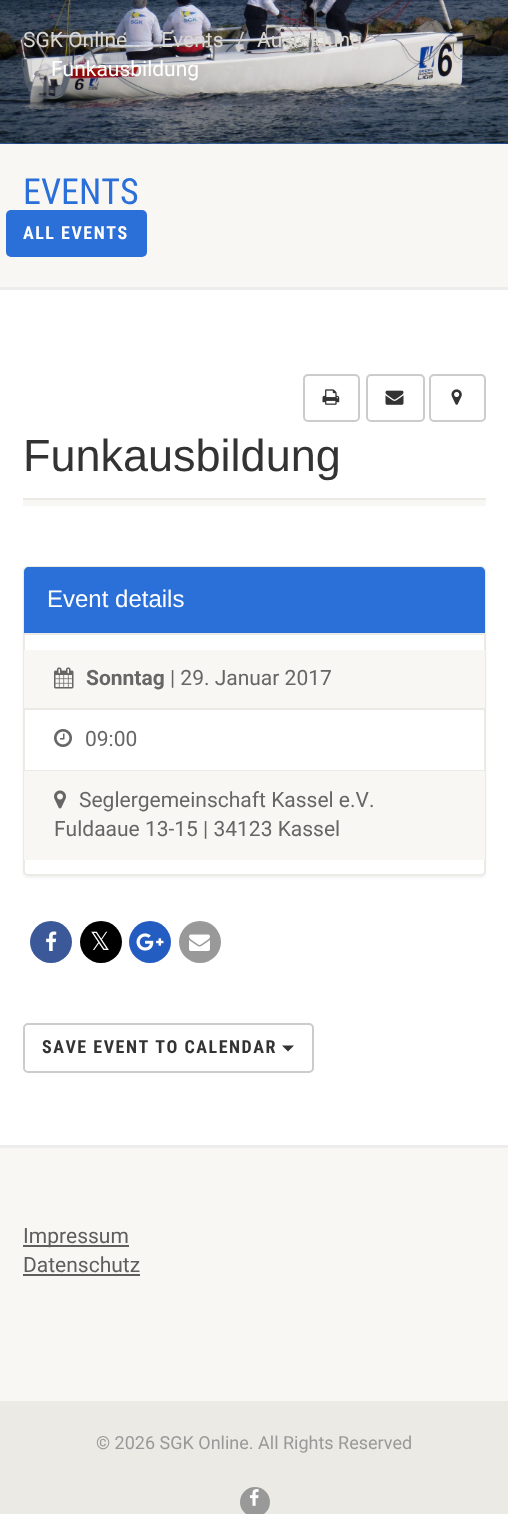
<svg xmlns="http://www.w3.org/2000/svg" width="508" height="1514">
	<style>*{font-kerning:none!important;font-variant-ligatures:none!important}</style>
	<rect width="100%" height="100%" fill="#FFFFFF" />
	<rect x="0" y="143" width="508" height="1" fill="#2B70D8" />
	<image x="0" y="0" width="508" height="144" href="assets/img1.png" />
	<g font-family="Roboto" font-size="21" fill="#D8D6D1">
		<text x="23" y="47">SGK Online</text>
		<text x="161" y="47">Events</text>
	</g>
	<text x="236" y="47" font-family="Roboto" font-size="21" fill="#CCCCCC">/</text>
	<text x="257" y="47" font-family="Roboto" font-size="21" fill="#D8D6D1">Ausbildung</text>
	<text x="51" y="76" font-family="Roboto" font-size="21" fill="#FFFFFF">Funkausbildung</text>
	<path d="M0 286V290H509V147H508V286Z" fill="#EDEDED" />
	<rect x="0" y="144" width="508" height="143" fill="#F8F7F3" />
	<text x="23" y="204" font-family="Roboto Condensed" font-size="36" fill="#2B70D8">EVENTS</text>
	<rect x="6" y="210" width="141" height="47" rx="5" fill="#2B70D8" />
	<text x="23" y="239" font-family="Roboto Condensed" font-size="18" font-weight="700" letter-spacing="1.5" fill="#FFFFFF">ALL EVENTS</text>
	<rect x="304" y="375" width="55" height="46" rx="4" fill="none" stroke="#CCCCCC" stroke-width="2" />
	<image x="322" y="389" width="18" height="16" href="assets/img2.png" />
	<rect x="367" y="375" width="57" height="46" rx="4" fill="none" stroke="#CCCCCC" stroke-width="2" />
	<image x="385" y="390" width="19" height="15" href="assets/img3.png" />
	<rect x="430" y="375" width="55" height="46" rx="4" fill="none" stroke="#CCCCCC" stroke-width="2" />
	<image x="451" y="389" width="11" height="16" href="assets/img4.png" />
	<rect x="23" y="498" width="463" height="2" fill="#ECEAE4" />
	<text x="23" y="471" font-family="Liberation Sans" font-size="45" fill="#333333">Funkausbildung</text>
	<rect x="23" y="500" width="463" height="6" fill="#F8F7F3" />
	<rect x="23" y="567" width="463" height="311" rx="5" fill="#000000" fill-opacity="0.05" filter="blur(1px)" />
	<rect x="24" y="567" width="461" height="308" rx="4" fill="#FFFFFF" stroke="#ECEAE4" stroke-width="2" />
	<path d="M29 567H480C483 567 485 569 485 572V635H24V572C24 569 26 567 29 567Z" fill="#2B70D8" />
	<rect x="24" y="633" width="461" height="2" fill="#ECEAE4" />
	<text x="47" y="607" font-family="Liberation Sans" font-size="24" fill="#FFFFFF">Event details</text>
	<rect x="24" y="650" width="461" height="58" fill="#F8F7F3" />
	<rect x="24" y="708" width="461" height="2" fill="#ECEAE4" />
	<image x="54" y="667" width="20" height="22" href="assets/img5.png" />
	<text x="86" y="685" font-family="Roboto" font-size="21" font-weight="700" fill="#666666">Sonntag</text>
	<text x="170" y="685" font-family="Roboto" font-size="21" fill="#666666">| 29. Januar 2017</text>
	<rect x="24" y="770" width="461" height="1" fill="#ECEAE4" />
	<image x="54" y="729" width="18" height="18" href="assets/img6.png" />
	<text x="85" y="746" font-family="Roboto" font-size="21" fill="#666666">09:00</text>
	<rect x="24" y="771" width="461" height="89" fill="#F8F7F3" />
	<image x="54" y="790" width="12" height="19" href="assets/img7.png" />
	<g font-family="Roboto" font-size="21" fill="#666666">
		<text x="79" y="807">Seglergemeinschaft Kassel e.V.</text>
		<text x="54" y="836">Fuldaaue 13-15 | 34123 Kassel</text>
	</g>
	<circle cx="51" cy="942" r="21" fill="#3B5998" />
	<image x="46" y="931" width="11" height="20" href="assets/img8.png" />
	<circle cx="101" cy="942" r="21" fill="#000000" />
	<text x="90" y="950" font-family="DejaVu Sans" font-size="25" fill="#FFFFFF">𝕏</text>
	<circle cx="150" cy="942" r="21" fill="#245DC1" />
	<image x="136" y="933" width="28" height="18" href="assets/img9.png" />
	<circle cx="200" cy="942" r="21" fill="#999999" />
	<image x="189" y="934" width="21" height="17" href="assets/img10.png" />
	<rect x="24" y="1024" width="289" height="48" rx="4" fill="none" stroke="#CCCCCC" stroke-width="2" />
	<text x="42" y="1053" font-family="Roboto Condensed" font-size="18" font-weight="700" letter-spacing="1.5" fill="#333333">SAVE EVENT TO CALENDAR</text>
	<path d="M282 1045.5H294L288 1051.5Z" fill="#333333" />
	<path d="M0 1145V1148H508V1398H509V1145Z" fill="#EDEDED" />
	<rect x="0" y="1148" width="508" height="253" fill="#F8F7F3" />
	<rect x="23" y="1245" width="106" height="2" fill="#5E5E5E" />
	<g font-family="Roboto" font-size="21" fill="#5E5E5E">
		<text x="23" y="1243">Impressum</text>
		<text x="23" y="1272">Datenschutz</text>
	</g>
	<rect x="23" y="1274" width="117" height="2" fill="#5E5E5E" />
	<rect x="0" y="1401" width="508" height="113" fill="#ECEAE4" />
	<text x="96" y="1449" font-family="Roboto" font-size="18" fill="#999999">© 2026 SGK Online. All Rights Reserved</text>
	<circle cx="255" cy="1502" r="15" fill="#999999" />
	<image x="249" y="1489" width="10" height="17" href="assets/img11.png" />
</svg>
